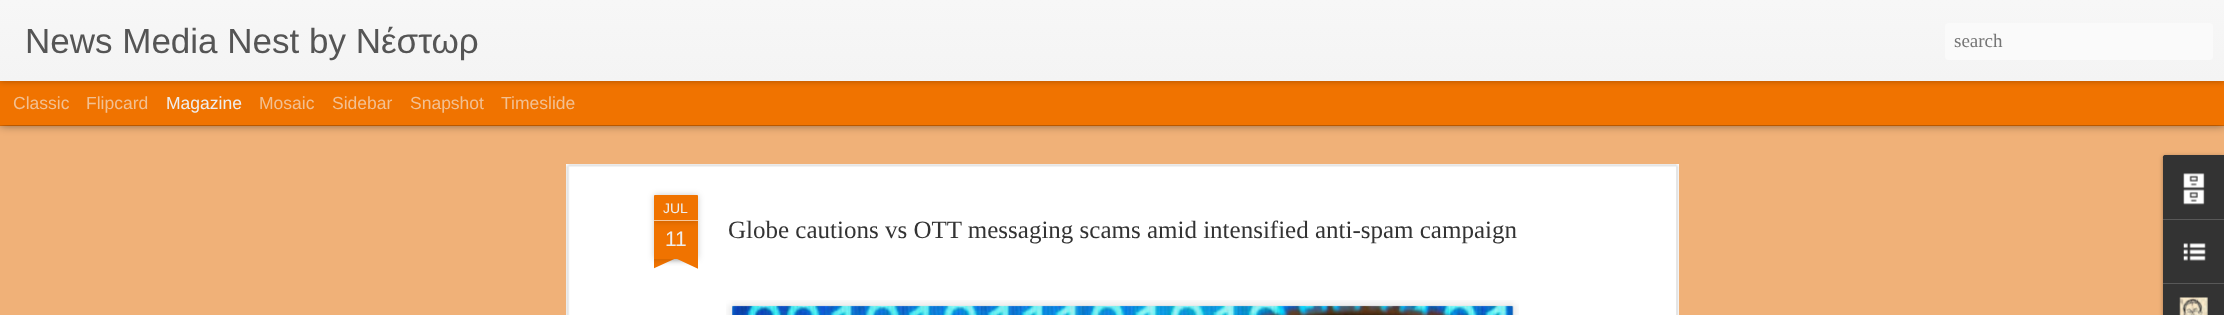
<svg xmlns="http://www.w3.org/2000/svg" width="2224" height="315">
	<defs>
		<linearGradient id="g1" gradientUnits="userSpaceOnUse" x1="0" y1="0" x2="0" y2="81"><stop offset="0" stop-color="#F7F7F7" /><stop offset="1" stop-color="#F4F4F4" /></linearGradient>
		<clipPath id="clip1"><rect x="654" y="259" width="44" height="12" /></clipPath>
		<clipPath id="clip2"><rect x="654" y="259" width="44" height="12" /></clipPath>
	</defs>
	<rect width="100%" height="100%" fill="#F07300" />
	<rect x="0" y="126" width="2224" height="189" fill="#F0B178" />
	<rect x="0" y="81" width="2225" height="44" fill="#000000" fill-opacity="0.5" filter="blur(5px)" />
	<rect x="0" y="81" width="2224" height="44" fill="#F07300" />
	<rect x="0" y="0" width="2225" height="81" fill="#000000" fill-opacity="0.3" filter="blur(3px)" />
	<rect x="0" y="0" width="2224" height="81" fill="url(#g1)" />
	<text x="25" y="53" font-family="Liberation Sans" font-size="35" fill="#555555">News Media Nest by Νέστωρ</text>
	<rect x="1945" y="23" width="268" height="37" rx="4" fill="#FAFAFA" />
	<text x="1954" y="47" font-family="Liberation Serif" font-size="19" fill="#757575">search</text>
	<g font-family="Liberation Sans" font-size="17.5" fill="#F2C092">
		<text x="13" y="109">Classic</text>
		<text x="86" y="109">Flipcard</text>
	</g>
	<text x="166" y="109" font-family="Liberation Sans" font-size="17.5" fill="#EEEEEE">Magazine</text>
	<g font-family="Liberation Sans" font-size="17.5" fill="#F2C092">
		<text x="259" y="109">Mosaic</text>
		<text x="332" y="109">Sidebar</text>
		<text x="410" y="109">Snapshot</text>
		<text x="501" y="109">Timeslide</text>
	</g>
	<rect x="566" y="164" width="1113" height="151" fill="#FFFFFF" />
	<image x="566" y="164" width="1113" height="151" href="assets/img1.png" />
	<rect x="654" y="221" width="44" height="38" fill="#000000" fill-opacity="0.2" filter="blur(3px)" />
	<rect x="654" y="221" width="44" height="38" fill="#F07300" />
	<rect x="654" y="195" width="44" height="26" rx="1" fill="#000000" fill-opacity="0.2" filter="blur(3px)" />
	<path d="M655 195H697C697.5 195 698 195.5 698 196V221H654V196C654 195.5 654.5 195 655 195Z" fill="#F07300" />
	<rect x="654" y="220" width="44" height="1" fill="#F9C799" />
	<text x="663" y="213" font-family="Liberation Sans" font-size="14" fill="#EEEEEE">JUL</text>
	<text x="665" y="246" font-family="Liberation Sans" font-size="21" fill="#EEEEEE">11</text>
	<g clip-path="url(#clip1)">
		<rect x="643" y="246" width="62" height="13" fill="#000000" fill-opacity="0.2" filter="blur(3px)" />
	</g>
	<g clip-path="url(#clip2)">
		<path d="M643 260L699 234L705 245L648 271Z" fill="#F07300" />
	</g>
	<g clip-path="url(#clip1)">
		<rect x="646" y="246" width="63" height="13" fill="#000000" fill-opacity="0.2" filter="blur(3px)" />
	</g>
	<g clip-path="url(#clip2)">
		<path d="M652 234L708 260L703 271L647 245Z" fill="#F07300" />
	</g>
	<text x="728" y="238" font-family="Liberation Serif" font-size="25" fill="#333333">Globe cautions vs OTT messaging scams amid intensified anti-spam campaign</text>
	<image x="726" y="300" width="793" height="15" href="assets/img2.png" />
	<image x="732" y="305" width="782" height="10" href="assets/img3.png" />
	<rect x="2163" y="156" width="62" height="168" rx="2.5" fill="#000000" fill-opacity="0.3" filter="blur(2px)" />
	<path d="M2165.5 155H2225V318H2165.5C2164 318 2163 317 2163 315.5V157.5C2163 156 2164 155 2165.5 155Z" fill="#333333" />
	<path d="M2165.5 155H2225V219H2163V157.5C2163 156 2164 155 2165.5 155Z" fill="#333333" />
	<image x="2183" y="173" width="22" height="32" href="assets/img4.png" />
	<rect x="2163" y="219" width="61" height="1" fill="#585858" />
	<image x="2183" y="243" width="23" height="18" href="assets/img5.png" />
	<rect x="2163" y="283" width="61" height="1" fill="#585858" />
	<image x="2179" y="297" width="29" height="18" href="assets/img6.png" />
</svg>
